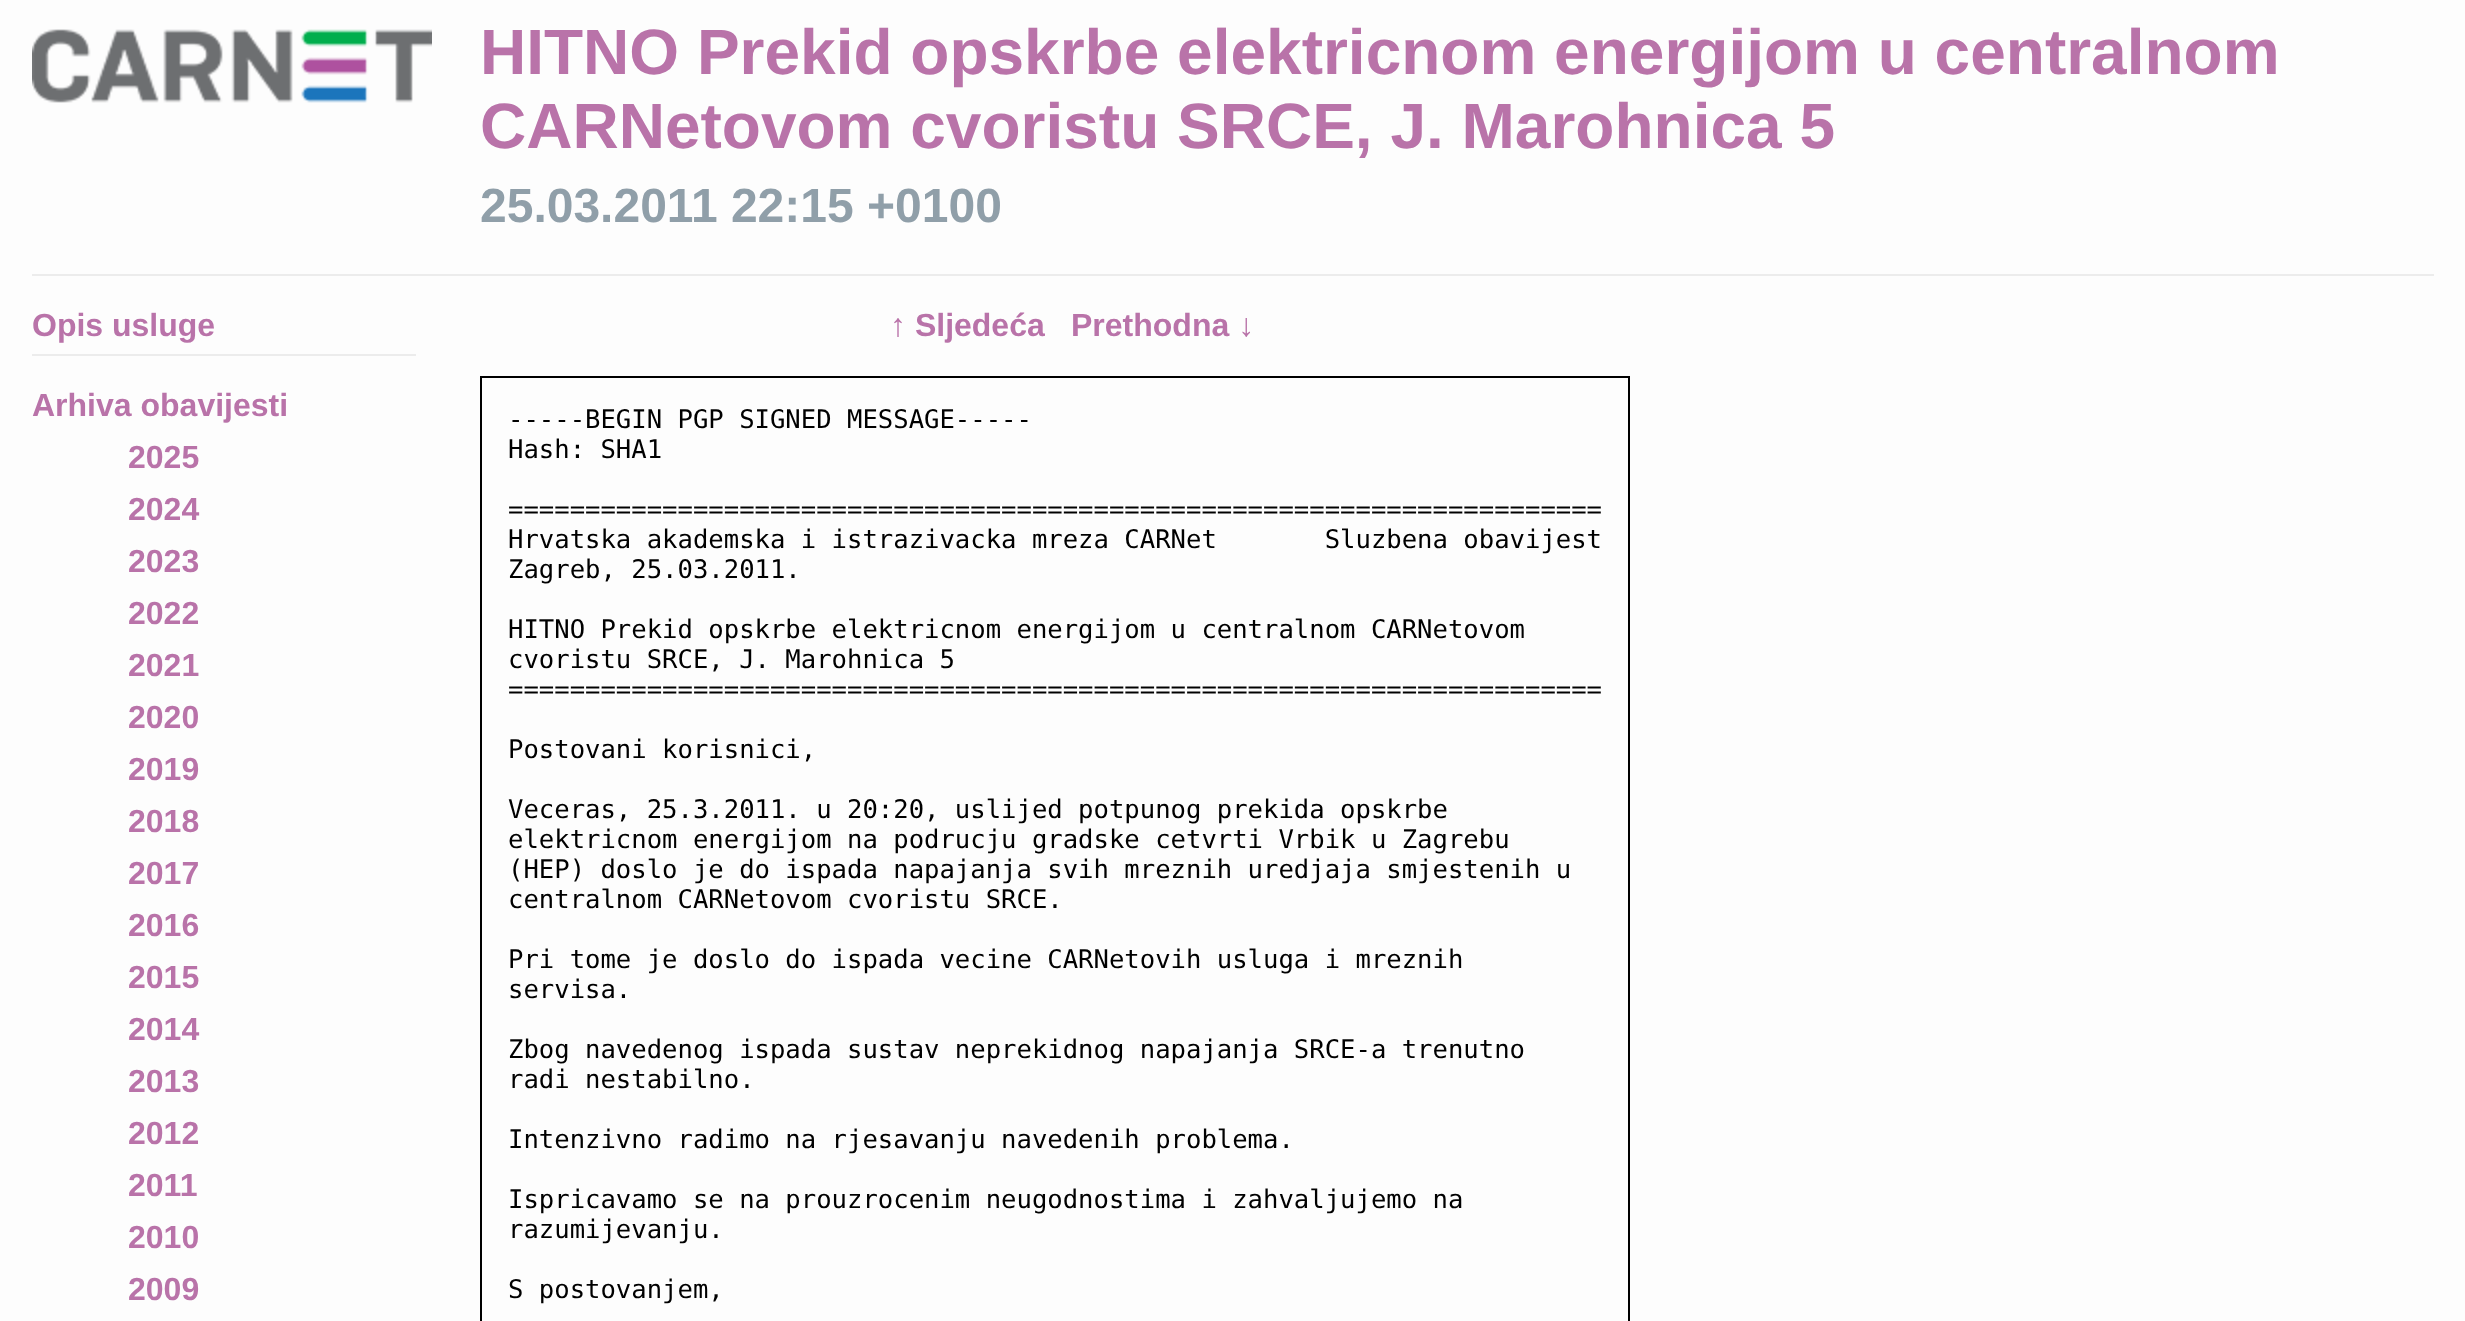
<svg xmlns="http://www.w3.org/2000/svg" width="2465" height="1321">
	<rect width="100%" height="100%" fill="#FDFDFD" />
	<image x="32" y="29" width="400" height="74" href="assets/img1.png" />
	<g font-family="Liberation Sans" font-size="64" font-weight="700" fill="#B973A9">
		<text x="480" y="74">HITNO Prekid opskrbe elektricnom energijom u centralnom</text>
		<text x="480" y="148">CARNetovom cvoristu SRCE, J. Marohnica 5</text>
	</g>
	<text x="480" y="222" font-family="Liberation Sans" font-size="48" font-weight="700" fill="#909FA9">25.03.2011 22:15 +0100</text>
	<rect x="32" y="274" width="2402" height="2" fill="#ECECEC" />
	<rect x="32" y="354" width="384" height="2" fill="#ECECEC" />
	<g font-family="Liberation Sans" font-size="32" font-weight="700" fill="#B973A9">
		<text x="32" y="336">Opis usluge</text>
		<text x="32" y="416">Arhiva obavijesti</text>
		<text x="128" y="468">2025</text>
		<text x="128" y="520">2024</text>
		<text x="128" y="572">2023</text>
		<text x="128" y="624">2022</text>
		<text x="128" y="676">2021</text>
		<text x="128" y="728">2020</text>
		<text x="128" y="780">2019</text>
		<text x="128" y="832">2018</text>
		<text x="128" y="884">2017</text>
		<text x="128" y="936">2016</text>
		<text x="128" y="988">2015</text>
		<text x="128" y="1040">2014</text>
		<text x="128" y="1092">2013</text>
		<text x="128" y="1144">2012</text>
		<text x="128" y="1196">2011</text>
		<text x="128" y="1248">2010</text>
		<text x="128" y="1300">2009</text>
		<text x="890" y="336">↑ Sljedeća</text>
		<text x="1071" y="336">Prethodna ↓</text>
	</g>
	<rect x="481" y="377" width="1148" height="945" fill="none" stroke="#000000" stroke-width="2" />
	<g font-family="DejaVu Sans Mono" font-size="25.6" fill="#000000">
		<text x="508" y="428">-----BEGIN PGP SIGNED MESSAGE-----</text>
		<text x="508" y="458">Hash: SHA1</text>
		<text x="508" y="518">=======================================================================</text>
		<text x="508" y="548" xml:space="preserve">Hrvatska akademska i istrazivacka mreza CARNet       Sluzbena obavijest</text>
		<text x="508" y="578">Zagreb, 25.03.2011.</text>
		<text x="508" y="638">HITNO Prekid opskrbe elektricnom energijom u centralnom CARNetovom</text>
		<text x="508" y="668">cvoristu SRCE, J. Marohnica 5</text>
		<text x="508" y="698">=======================================================================</text>
		<text x="508" y="758">Postovani korisnici,</text>
		<text x="508" y="818">Veceras, 25.3.2011. u 20:20, uslijed potpunog prekida opskrbe</text>
		<text x="508" y="848">elektricnom energijom na podrucju gradske cetvrti Vrbik u Zagrebu</text>
		<text x="508" y="878">(HEP) doslo je do ispada napajanja svih mreznih uredjaja smjestenih u</text>
		<text x="508" y="908">centralnom CARNetovom cvoristu SRCE.</text>
		<text x="508" y="968">Pri tome je doslo do ispada vecine CARNetovih usluga i mreznih</text>
		<text x="508" y="998">servisa.</text>
		<text x="508" y="1058">Zbog navedenog ispada sustav neprekidnog napajanja SRCE-a trenutno</text>
		<text x="508" y="1088">radi nestabilno.</text>
		<text x="508" y="1148">Intenzivno radimo na rjesavanju navedenih problema.</text>
		<text x="508" y="1208">Ispricavamo se na prouzrocenim neugodnostima i zahvaljujemo na</text>
		<text x="508" y="1238">razumijevanju.</text>
		<text x="508" y="1298">S postovanjem,</text>
	</g>
</svg>
